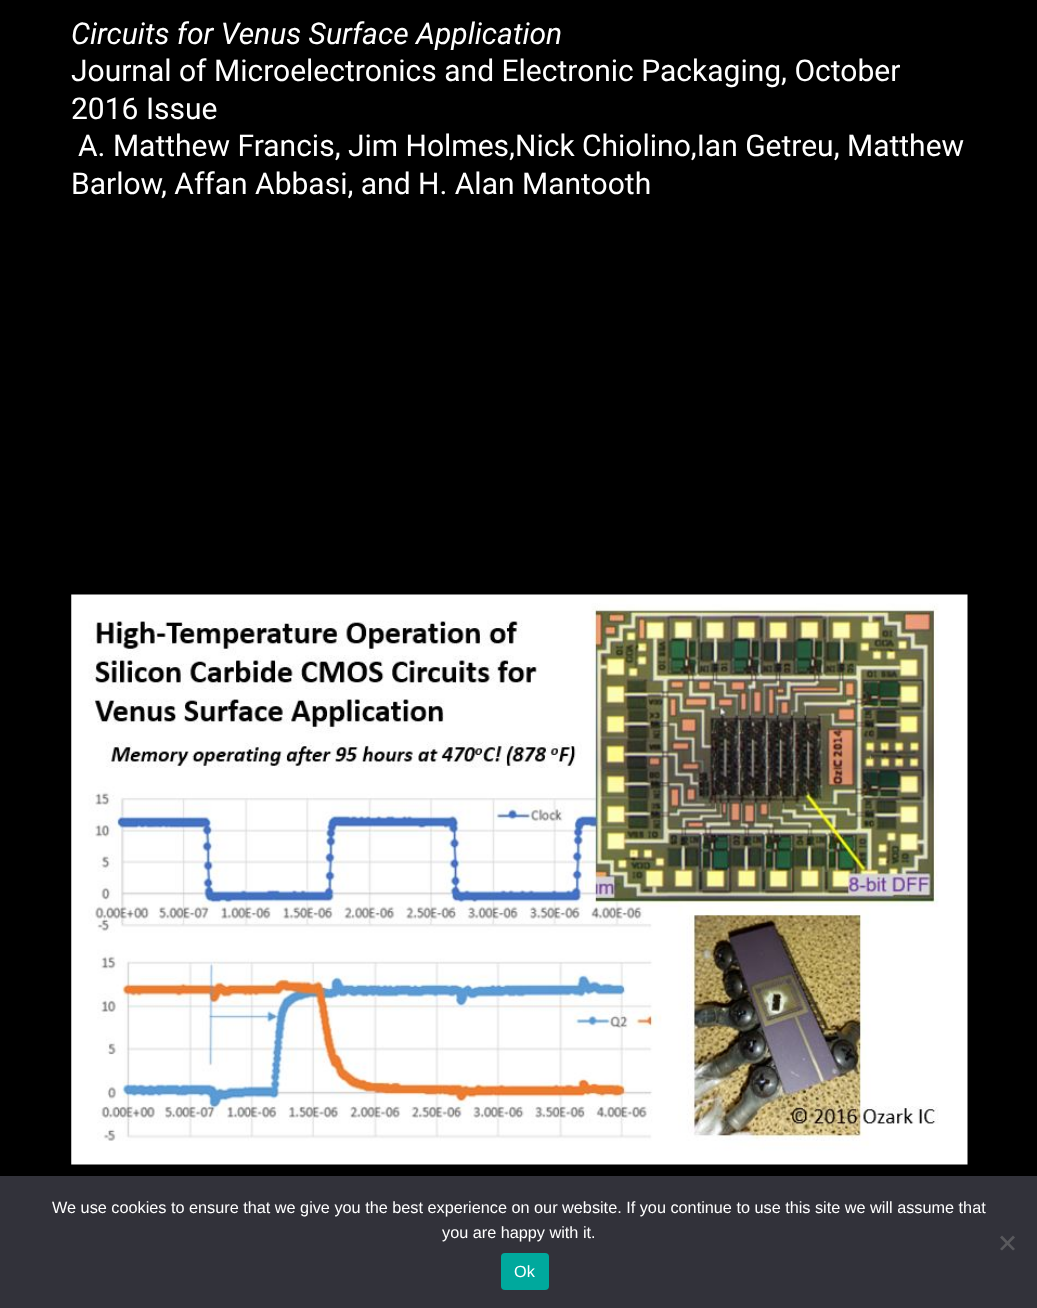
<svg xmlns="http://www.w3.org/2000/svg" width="1037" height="1308">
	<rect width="100%" height="100%" fill="#000000" />
	<text x="71" y="44" font-family="Roboto" font-size="30" font-style="italic" fill="#FFFFFF">Circuits for Venus Surface Application</text>
	<g font-family="Roboto" font-size="30" fill="#FFFFFF">
		<text x="71" y="81">Journal of Microelectronics and Electronic Packaging, October</text>
		<text x="71" y="119">2016 Issue</text>
		<text x="78" y="156">A. Matthew Francis, Jim Holmes,Nick Chiolino,Ian Getreu, Matthew</text>
		<text x="71" y="194">Barlow</text>
		<text x="161" y="194">, Affan Abbasi, and H. Alan Mantooth</text>
	</g>
	<image x="71" y="594" width="897" height="571" href="assets/img1.png" />
	<rect x="0" y="1176" width="1037" height="132" fill="#32323A" />
	<g font-family="Liberation Sans" font-size="16.25" fill="#FFFFFF">
		<text x="52" y="1213">We use cookies to ensure that we give you the best experience on our website. If you continue to use this site we will assume that</text>
		<text x="442" y="1238">you are happy with it.</text>
	</g>
	<path d="M1013 1235.5L1015 1237.5L1002 1250.5L1000 1249Z" fill="#59595D" />
	<path d="M1000 1237.5L1002 1235.5L1015 1249L1013 1250.5Z" fill="#59595D" />
	<rect x="501" y="1253" width="48" height="37" rx="4" fill="#00A99D" />
	<text x="514" y="1277" font-family="Liberation Sans" font-size="16.25" fill="#FFFFFF">Ok</text>
</svg>
